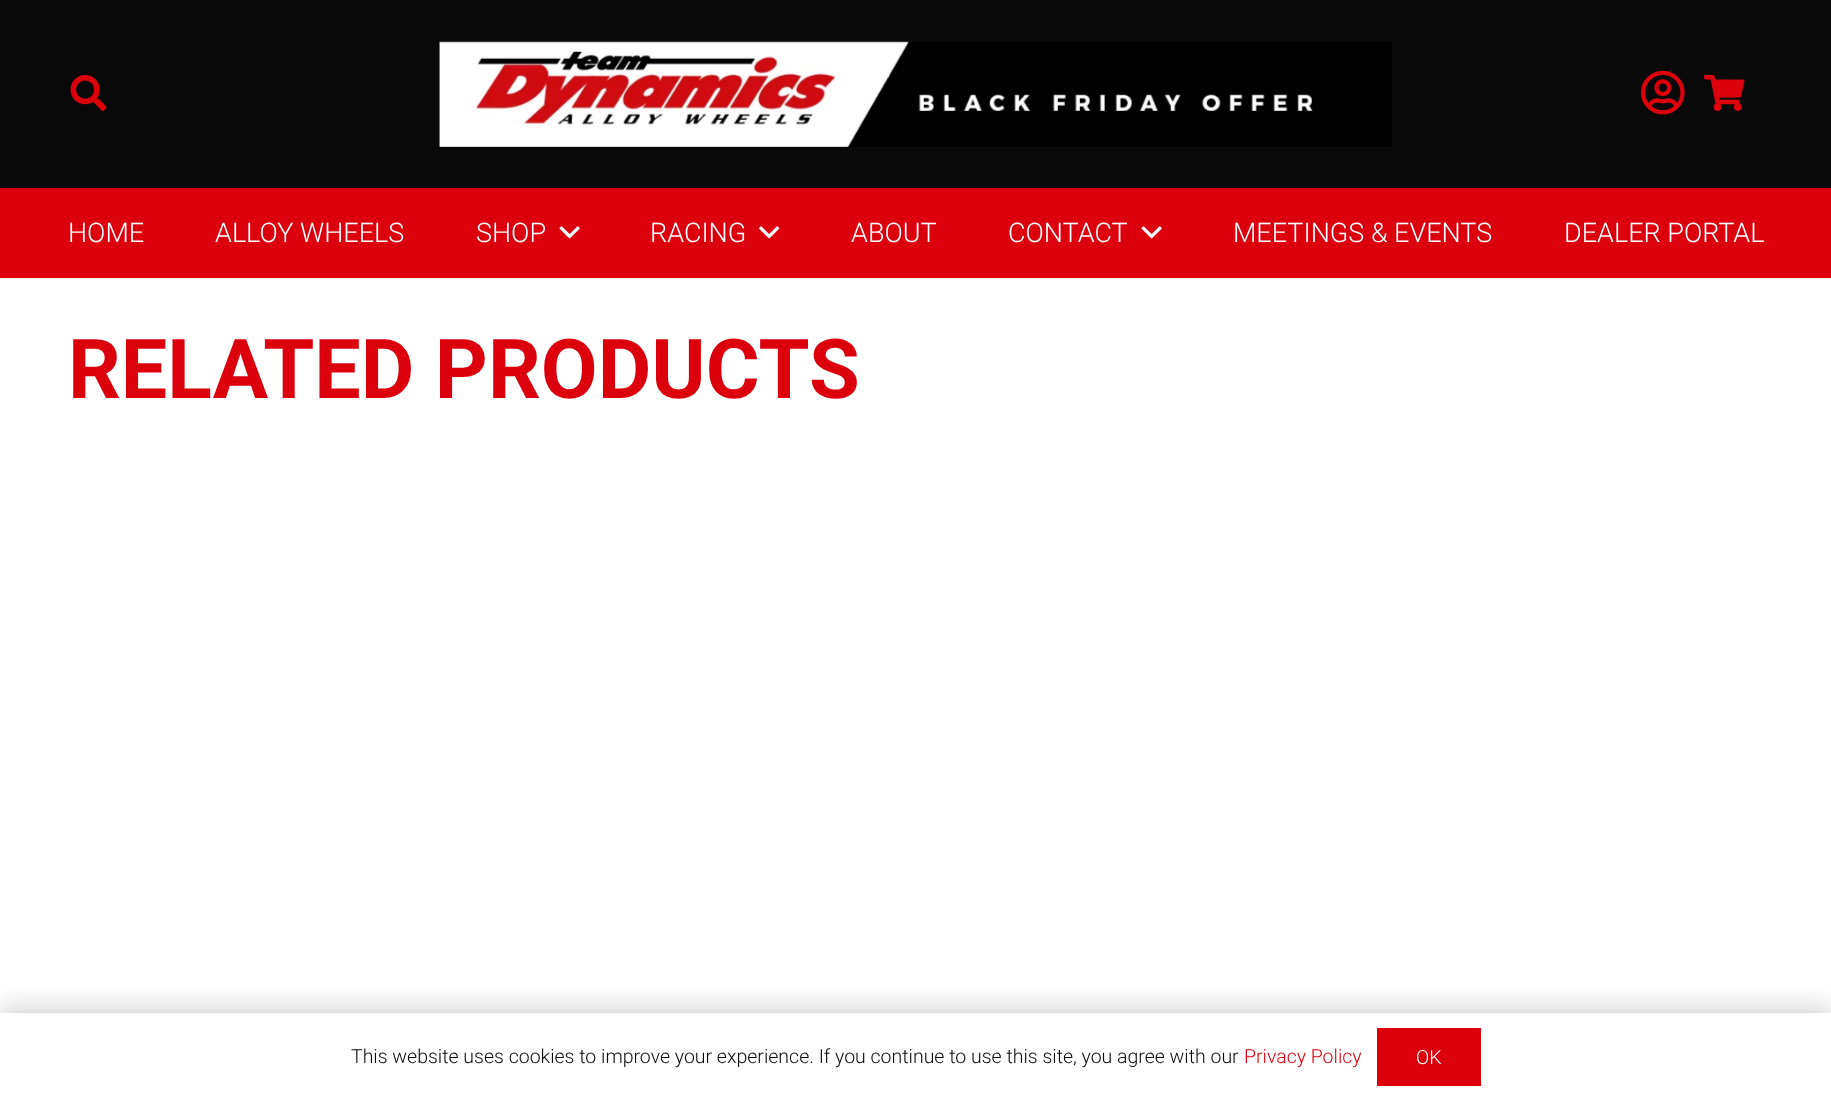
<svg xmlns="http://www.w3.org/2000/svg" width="1831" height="1100">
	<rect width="100%" height="100%" fill="#FFFFFF" />
	<rect x="0" y="0" width="1831" height="188" fill="#090909" />
	<image x="70" y="75" width="37" height="36" href="assets/img1.png" />
	<image x="439" y="41" width="953" height="106" href="assets/img2.png" />
	<image x="1641" y="70" width="44" height="45" href="assets/img3.png" />
	<image x="1704" y="75" width="41" height="36" href="assets/img4.png" />
	<path d="M0 278V279H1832V189V278Z" fill="#EBEBEB" />
	<rect x="0" y="188" width="1831" height="90" fill="#DB000C" />
	<g font-family="Roboto" font-size="27" font-weight="300" fill="#FFFFFF">
		<text x="68" y="242">HOME</text>
		<text x="215" y="242">ALLOY WHEELS</text>
		<text x="476" y="242">SHOP</text>
	</g>
	<image x="559" y="226" width="21" height="13" href="assets/img5.png" />
	<text x="650" y="242" font-family="Roboto" font-size="27" font-weight="300" fill="#FFFFFF">RACING</text>
	<image x="759" y="226" width="21" height="13" href="assets/img6.png" />
	<g font-family="Roboto" font-size="27" font-weight="300" fill="#FFFFFF">
		<text x="851" y="242">ABOUT</text>
		<text x="1008" y="242">CONTACT</text>
	</g>
	<image x="1141" y="226" width="21" height="13" href="assets/img5.png" />
	<g font-family="Roboto" font-size="27" font-weight="300" fill="#FFFFFF">
		<text x="1233" y="242">MEETINGS &amp; EVENTS</text>
		<text x="1564" y="242">DEALER PORTAL</text>
	</g>
	<text x="68" y="398" font-family="Roboto" font-size="82.5" font-weight="700" fill="#DB000C">RELATED PRODUCTS</text>
	<rect x="0" y="1005" width="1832" height="89" fill="#000000" fill-opacity="0.15" filter="blur(11px)" />
	<rect x="0" y="1013" width="1831" height="87" fill="#FFFFFF" />
	<text x="351" y="1063" font-family="Roboto" font-size="19.5" font-weight="300" fill="#090909">This website uses cookies to improve your experience. If you continue to use this site, you agree with our</text>
	<text x="1244" y="1063" font-family="Roboto" font-size="19.5" font-weight="300" fill="#DB000C">Privacy Policy</text>
	<rect x="1377" y="1028" width="104" height="58" fill="#DB000C" />
	<text x="1416" y="1064" font-family="Roboto" font-size="19.5" font-weight="300" fill="#FFFFFF">OK</text>
</svg>
